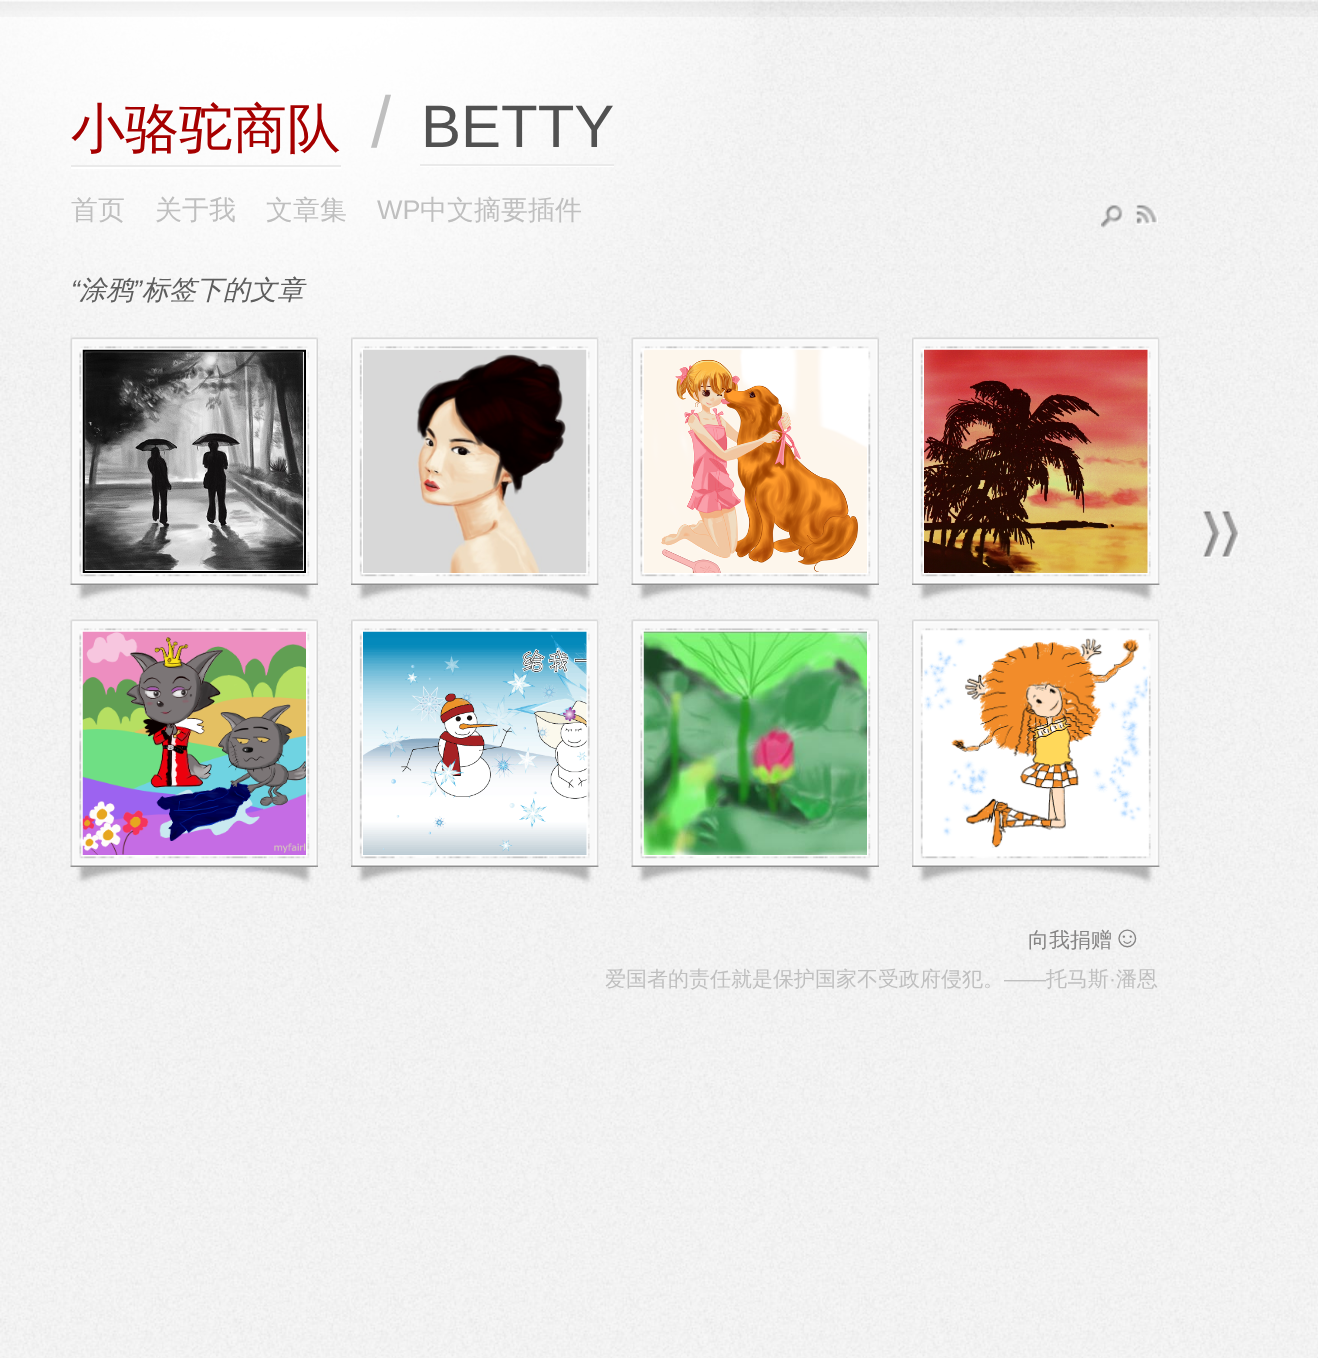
<svg xmlns="http://www.w3.org/2000/svg" width="1318" height="1358">
	<rect width="100%" height="100%" fill="#FFFFFF" />
	<image x="0" y="0" width="1318" height="1358" href="assets/img1.png" />
	<image x="0" y="0" width="754" height="360" href="assets/img2.png" />
	<image x="0" y="1" width="1318" height="16" href="assets/img3.png" />
	<rect x="71" y="167" width="270" height="2" fill="#FFFFFF" />
	<rect x="71" y="165" width="270" height="2" fill="#EAEAEA" />
	<text x="71" y="147" font-family="WenQuanYi Zen Hei" font-size="54" font-weight="500" fill="#A60000">小骆驼商队</text>
	<text x="371" y="147" font-family="Liberation Sans" font-size="72" fill="#BFBFBF">/</text>
	<rect x="420" y="166" width="194" height="1" fill="#FFFFFF" />
	<rect x="420" y="164" width="194" height="2" fill="#EAEAEA" />
	<text x="421" y="147" font-family="Liberation Sans" font-size="60" fill="#515151">BETTY</text>
	<g font-family="WenQuanYi Zen Hei" font-size="27" font-weight="500" fill="#BFBFBF">
		<text x="71" y="219">首页</text>
		<text x="155" y="219">关于我</text>
		<text x="266" y="219">文章集</text>
	</g>
	<text x="377" y="219" font-family="Liberation Sans" font-size="27" fill="#BFBFBF">WP</text>
	<text x="420" y="219" font-family="WenQuanYi Zen Hei" font-size="27" font-weight="500" fill="#BFBFBF">中文摘要插件</text>
	<image x="1101" y="205" width="24" height="25" href="assets/img4.png" />
	<image x="1135" y="205" width="23" height="20" href="assets/img5.png" />
	<text x="71" y="299" font-family="Liberation Sans" font-size="27" font-style="italic" fill="#5E5E5E">“</text>
	<text x="79" y="299" font-family="WenQuanYi Zen Hei" font-size="27" font-weight="500" font-style="italic" fill="#5E5E5E">涂鸦</text>
	<text x="133" y="299" font-family="Liberation Sans" font-size="27" font-style="italic" fill="#5E5E5E">”</text>
	<text x="142" y="299" font-family="WenQuanYi Zen Hei" font-size="27" font-weight="500" font-style="italic" fill="#5E5E5E">标签下的文章</text>
	<image x="74" y="585" width="241" height="20" href="assets/img6.png" />
	<image x="70" y="337" width="248" height="248" href="assets/img7.png" />
	<image x="82" y="349" width="224" height="224" href="assets/img8.png" />
	<image x="354" y="585" width="241" height="20" href="assets/img9.png" />
	<rect x="598" y="338" width="1" height="247" fill="#FFFFFF" />
	<image x="351" y="337" width="248" height="248" href="assets/img10.png" />
	<image x="363" y="349" width="224" height="224" href="assets/img11.png" />
	<image x="635" y="585" width="241" height="20" href="assets/img12.png" />
	<image x="631" y="337" width="248" height="248" href="assets/img13.png" />
	<image x="643" y="349" width="224" height="224" href="assets/img14.png" />
	<image x="915" y="585" width="241" height="20" href="assets/img15.png" />
	<rect x="1159" y="338" width="1" height="247" fill="#FFFFFF" />
	<image x="912" y="337" width="248" height="248" href="assets/img16.png" />
	<image x="924" y="349" width="224" height="224" href="assets/img17.png" />
	<image x="1203" y="511" width="37" height="47" href="assets/img18.png" />
	<image x="76" y="867" width="239" height="20" href="assets/img19.png" />
	<image x="70" y="619" width="248" height="248" href="assets/img20.png" />
	<image x="82" y="631" width="224" height="224" href="assets/img21.png" />
	<image x="354" y="867" width="242" height="20" href="assets/img22.png" />
	<rect x="598" y="620" width="1" height="247" fill="#FFFFFF" />
	<image x="351" y="619" width="248" height="248" href="assets/img23.png" />
	<image x="363" y="631" width="224" height="224" href="assets/img24.png" />
	<image x="635" y="867" width="241" height="20" href="assets/img25.png" />
	<image x="631" y="619" width="248" height="248" href="assets/img26.png" />
	<image x="643" y="631" width="224" height="224" href="assets/img27.png" />
	<image x="915" y="867" width="241" height="20" href="assets/img28.png" />
	<rect x="1159" y="620" width="1" height="247" fill="#FFFFFF" />
	<image x="912" y="619" width="248" height="248" href="assets/img29.png" />
	<image x="924" y="637" width="224" height="211" href="assets/img30.png" />
	<text x="1028" y="947" font-family="WenQuanYi Zen Hei" font-size="21" font-weight="500" fill="#858484">向我捐赠</text>
	<text x="1112" y="947" font-family="Liberation Sans" font-size="30" fill="#858484">☺</text>
	<text x="605" y="986" font-family="WenQuanYi Zen Hei" font-size="21" font-weight="500" fill="#BFBFBF">爱国者的责任就是保护国家不受政府侵犯。</text>
	<text x="1004" y="986" font-family="Liberation Sans" font-size="21" fill="#BFBFBF">——</text>
	<text x="1046" y="986" font-family="WenQuanYi Zen Hei" font-size="21" font-weight="500" fill="#BFBFBF">托马斯</text>
	<text x="1109" y="986" font-family="Liberation Sans" font-size="21" fill="#BFBFBF">·</text>
	<text x="1116" y="986" font-family="WenQuanYi Zen Hei" font-size="21" font-weight="500" fill="#BFBFBF">潘恩</text>
</svg>
